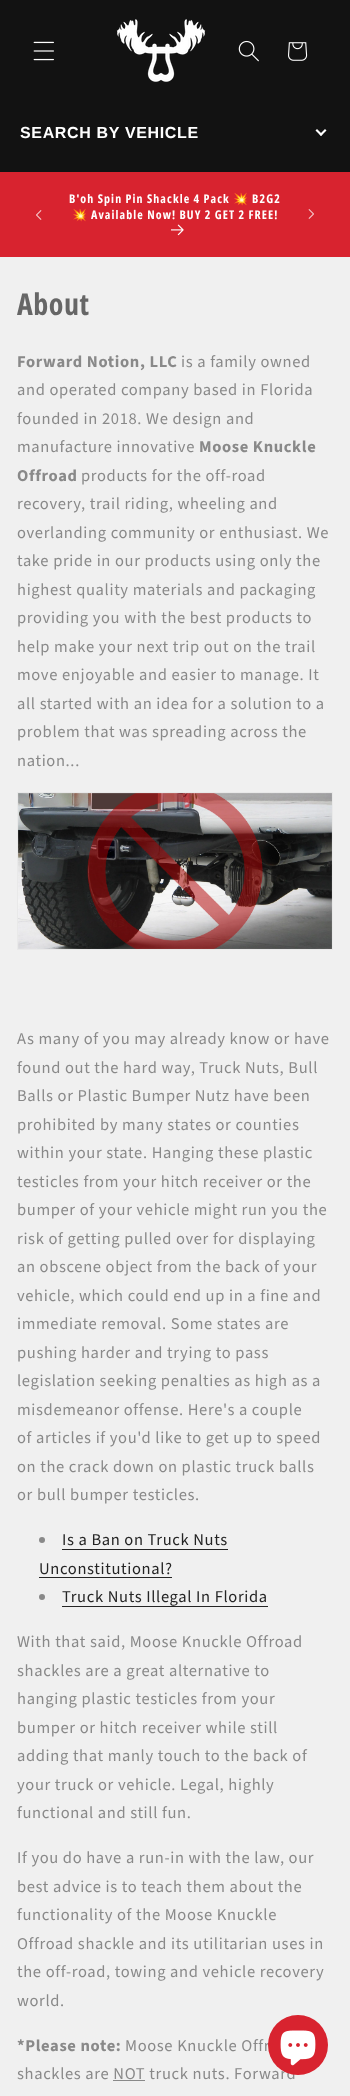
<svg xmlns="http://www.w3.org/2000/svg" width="350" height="2096">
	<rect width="100%" height="100%" fill="#F0F0F0" />
	<rect x="0" y="0" width="350" height="172" fill="#121212" />
	<image x="33" y="41" width="21" height="20" href="assets/img1.png" />
	<image x="116" y="19" width="90" height="63" href="assets/img2.png" />
	<image x="238" y="40" width="21" height="22" href="assets/img3.png" />
	<image x="288" y="42" width="20" height="19" href="assets/img4.png" />
	<text x="20" y="138" font-family="Liberation Sans" font-size="16" font-weight="700" letter-spacing="0.65" fill="#FFFFFF">SEARCH BY VEHICLE</text>
	<path d="M325 129L326.5 130.5L321 136L319.5 134.5Z" fill="#FFFFFF" />
	<path d="M317 129L322.5 134.5L321 136L315.5 130.5Z" fill="#FFFFFF" />
	<rect x="0" y="172" width="350" height="85" fill="#D8232F" />
	<image x="36" y="210" width="6" height="10" href="assets/img5.png" />
	<text x="69" y="203" font-family="Open Sans Condensed" font-size="12" font-weight="700" letter-spacing="1.1" fill="#FFFFFF">B'oh Spin Pin Shackle 4 Pack</text>
	<text x="233" y="203" font-family="Noto Color Emoji" font-size="12" font-weight="700" letter-spacing="1.1" fill="#FFFFFF">💥</text>
	<text x="252" y="203" font-family="Open Sans Condensed" font-size="12" font-weight="700" letter-spacing="1.1" fill="#FFFFFF">B2G2</text>
	<text x="72" y="219" font-family="Noto Color Emoji" font-size="12" font-weight="700" letter-spacing="1.1" fill="#FFFFFF">💥</text>
	<text x="91" y="219" font-family="Open Sans Condensed" font-size="12" font-weight="700" letter-spacing="1.1" fill="#FFFFFF">Available Now! BUY 2 GET 2 FREE!</text>
	<image x="171" y="224" width="13" height="12" href="assets/img6.png" />
	<image x="308" y="209" width="6" height="10" href="assets/img7.png" />
	<text x="17" y="315" font-family="Open Sans Condensed" font-size="30" font-weight="700" letter-spacing="0.5" fill="#666666">About</text>
	<text x="17" y="367" font-family="Source Sans Pro" font-size="16.5" font-weight="700" letter-spacing="0.65" fill="#898989">Forward Notion, LLC</text>
	<g font-family="Source Sans Pro" font-size="16.5" letter-spacing="0.65" fill="#898989">
		<text x="181" y="367">is a family owned</text>
		<text x="17" y="395">and operated company based in Florida</text>
		<text x="17" y="424">founded in 2018. We design and</text>
		<text x="17" y="452">manufacture innovative</text>
	</g>
	<g font-family="Source Sans Pro" font-size="16.5" font-weight="700" letter-spacing="0.65" fill="#898989">
		<text x="199" y="452">Moose Knuckle</text>
		<text x="17" y="481">Offroad</text>
	</g>
	<g font-family="Source Sans Pro" font-size="16.5" letter-spacing="0.65" fill="#898989">
		<text x="81" y="481">products for the off-road</text>
		<text x="17" y="509">recovery, trail riding, wheeling and</text>
		<text x="17" y="538">overlanding community or enthusiast. We</text>
		<text x="17" y="566">take pride in our products using only the</text>
		<text x="17" y="595">highest quality materials and packaging</text>
		<text x="17" y="623">providing you with the best products to</text>
		<text x="17" y="652">help make your next trip out on the trail</text>
		<text x="17" y="680">move enjoyable and easier to manage. It</text>
		<text x="17" y="709">all started with an idea for a solution to a</text>
		<text x="17" y="737">problem that was spreading across the</text>
		<text x="17" y="766">nation...</text>
	</g>
	<rect x="17.5" y="792.5" width="315" height="157" fill="none" stroke="#E9E9E9" />
	<image x="18" y="793" width="314" height="156" href="assets/img8.png" />
	<g font-family="Source Sans Pro" font-size="16.5" letter-spacing="0.65" fill="#898989">
		<text x="17" y="1044">As many of you may already know or have</text>
		<text x="17" y="1073">found out the hard way, Truck Nuts, Bull</text>
		<text x="17" y="1101">Balls or Plastic Bumper Nutz have been</text>
		<text x="17" y="1130">prohibited by many states or counties</text>
		<text x="17" y="1158">within your state. Hanging these plastic</text>
		<text x="17" y="1187">testicles from your hitch receiver or the</text>
		<text x="17" y="1215">bumper of your vehicle might run you the</text>
		<text x="17" y="1244">risk of getting pulled over for displaying</text>
		<text x="17" y="1272">an obscene object from the back of your</text>
		<text x="17" y="1301">vehicle, which could end up in a fine and</text>
		<text x="17" y="1329">immediate removal. Some states are</text>
		<text x="17" y="1358">pushing harder and trying to pass</text>
		<text x="17" y="1386">legislation seeking penalties as high as a</text>
		<text x="17" y="1415">misdemeanor offense. Here's a couple</text>
		<text x="17" y="1443">of articles if you'd like to get up to speed</text>
		<text x="17" y="1472">on the crack down on plastic truck balls</text>
		<text x="17" y="1500">or bull bumper testicles.</text>
	</g>
	<circle cx="42" cy="1540" r="3" fill="#898989" />
	<text x="62" y="1545" font-family="Source Sans Pro" font-size="16.5" letter-spacing="0.65" fill="#242424">Is a Ban on Truck Nuts</text>
	<rect x="62" y="1549" width="166" height="1" fill="#242424" />
	<text x="39" y="1574" font-family="Source Sans Pro" font-size="16.5" letter-spacing="0.65" fill="#242424">Unconstitutional?</text>
	<rect x="39" y="1577" width="133" height="1" fill="#242424" />
	<circle cx="42" cy="1597" r="3" fill="#898989" />
	<text x="62" y="1602" font-family="Source Sans Pro" font-size="16.5" letter-spacing="0.65" fill="#242424">Truck Nuts Illegal In Florida</text>
	<rect x="62" y="1606" width="206" height="1" fill="#242424" />
	<g font-family="Source Sans Pro" font-size="16.5" letter-spacing="0.65" fill="#898989">
		<text x="17" y="1647">With that said, Moose Knuckle Offroad</text>
		<text x="17" y="1676">shackles are a great alternative to</text>
		<text x="17" y="1704">hanging plastic testicles from your</text>
		<text x="17" y="1733">bumper or hitch receiver while still</text>
		<text x="17" y="1761">adding that manly touch to the back of</text>
		<text x="17" y="1790">your truck or vehicle. Legal, highly</text>
		<text x="17" y="1818">functional and still fun.</text>
		<text x="17" y="1863">If you do have a run-in with the law, our</text>
		<text x="17" y="1892">best advice is to teach them about the</text>
		<text x="17" y="1920">functionality of the Moose Knuckle</text>
		<text x="17" y="1949">Offroad shackle and its utilitarian uses in</text>
		<text x="17" y="1977">the off-road, towing and vehicle recovery</text>
		<text x="17" y="2006">world.</text>
	</g>
	<text x="17" y="2051" font-family="Source Sans Pro" font-size="16.5" font-weight="700" letter-spacing="0.65" fill="#898989">*Please note:</text>
	<g font-family="Source Sans Pro" font-size="16.5" letter-spacing="0.65" fill="#898989">
		<text x="125" y="2051">Moose Knuckle Offr</text>
		<text x="17" y="2079">shackles are NOT truck nuts. Forward</text>
	</g>
	<rect x="113" y="2080" width="32" height="1" fill="#898989" />
	<circle cx="298" cy="2045" r="30" fill="#D8232F" />
	<image x="280" y="2030" width="36" height="36" href="assets/img9.png" />
</svg>
